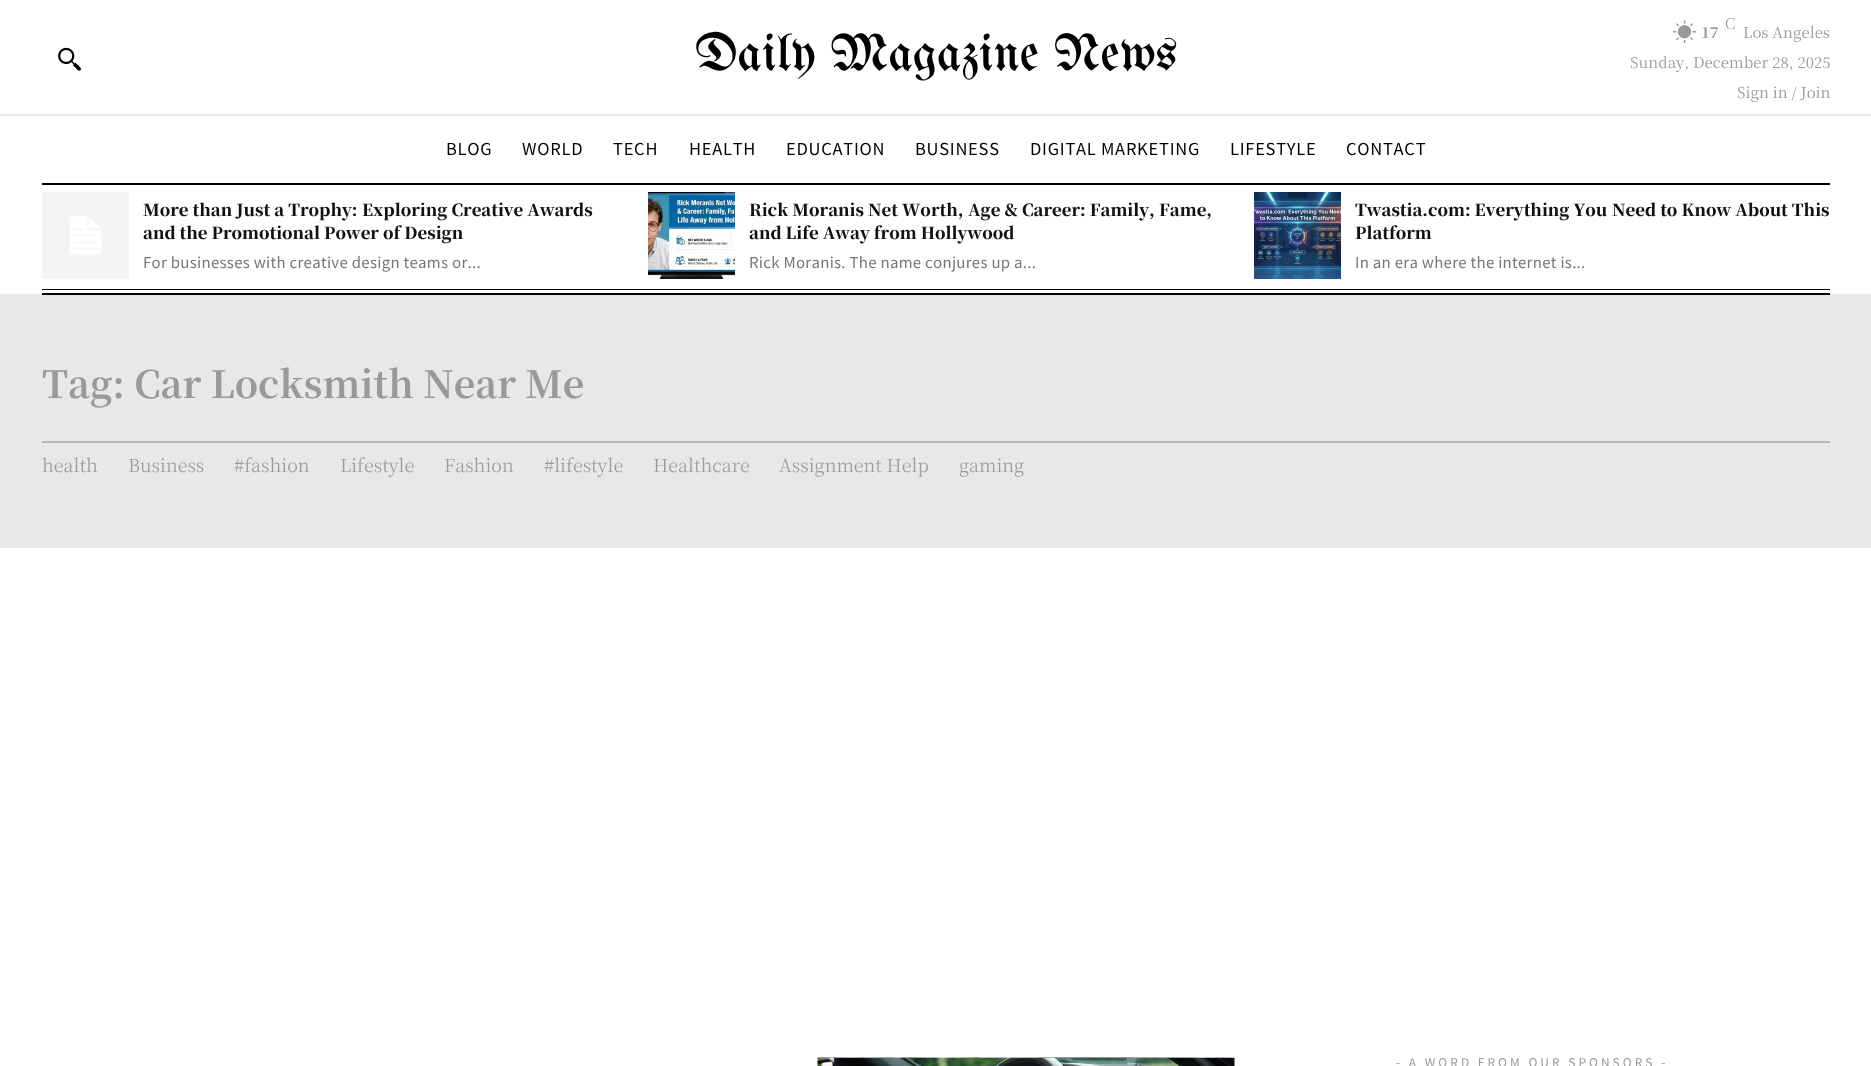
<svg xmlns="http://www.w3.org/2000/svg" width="1871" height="1066">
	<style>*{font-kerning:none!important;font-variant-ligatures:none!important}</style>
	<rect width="100%" height="100%" fill="#FFFFFF" />
	<image x="58" y="47" width="23" height="24" href="assets/img1.png" />
	<text x="695" y="70" font-family="UnifrakturMaguntia" font-size="52.5" fill="#000000">Daily Magazine News</text>
	<image x="1673" y="20" width="23" height="23" href="assets/img2.png" />
	<text x="1725" y="29" font-family="Noto Serif JP" font-size="15" font-weight="300" fill="#999999">C</text>
	<text x="1701" y="38" font-family="Noto Serif JP" font-size="15" font-weight="700" fill="#999999">17</text>
	<g font-family="Noto Serif JP" font-size="15" fill="#999999">
		<text x="1743" y="38">Los Angeles</text>
		<text x="1630" y="68">Sunday, December 28, 2025</text>
		<text x="1737" y="98">Sign in / Join</text>
	</g>
	<rect x="0" y="114" width="1871" height="2" fill="#E8E8E8" />
	<g font-family="Noto Sans JP" font-size="16.5" font-weight="100" letter-spacing="0.75" fill="#000000">
		<text x="446" y="155">BLOG</text>
		<text x="522" y="155">WORLD</text>
		<text x="613" y="155">TECH</text>
		<text x="689" y="155">HEALTH</text>
		<text x="786" y="155">EDUCATION</text>
		<text x="915" y="155">BUSINESS</text>
		<text x="1030" y="155">DIGITAL MARKETING</text>
		<text x="1230" y="155">LIFESTYLE</text>
		<text x="1346" y="155">CONTACT</text>
	</g>
	<rect x="42" y="183" width="1788" height="2" fill="#000000" />
	<rect x="0" y="294" width="1871" height="254" fill="#E8E8E8" />
	<rect x="42" y="293" width="1788" height="2" fill="#000000" />
	<image x="42" y="192" width="87" height="87" href="assets/img3.png" />
	<g font-family="Noto Serif JP" font-size="16.5" font-weight="900" fill="#111111">
		<text x="143" y="216">More than Just a Trophy:</text>
		<text x="362" y="216">Exploring Creative Awards</text>
		<text x="143" y="239">and the Promotional Power of Design</text>
	</g>
	<text x="143" y="268" font-family="Noto Sans JP" font-size="15" font-weight="100" letter-spacing="0.3" fill="#767676">For businesses with creative design teams or...</text>
	<image x="648" y="192" width="87" height="87" href="assets/img4.png" />
	<g font-family="Noto Serif JP" font-size="16.5" font-weight="900" fill="#111111">
		<text x="749" y="216">Rick Moranis Net Worth,</text>
		<text x="968" y="216">Age &amp; Career: Family,</text>
		<text x="1159" y="216">Fame,</text>
		<text x="749" y="239">and Life Away from Hollywood</text>
	</g>
	<text x="749" y="268" font-family="Noto Sans JP" font-size="15" font-weight="100" letter-spacing="0.3" fill="#767676">Rick Moranis. The name conjures up a...</text>
	<image x="1254" y="192" width="87" height="87" href="assets/img5.png" />
	<g font-family="Noto Serif JP" font-size="16.5" font-weight="900" fill="#111111">
		<text x="1355" y="216">Twastia.com: Everything You</text>
		<text x="1612" y="216">Need to Know About This</text>
		<text x="1355" y="239">Platform</text>
	</g>
	<text x="1355" y="268" font-family="Noto Sans JP" font-size="15" font-weight="100" letter-spacing="0.3" fill="#767676">In an era where the internet is...</text>
	<rect x="42" y="289" width="1788" height="1" fill="#000000" />
	<text x="42" y="398" font-family="Noto Serif JP" font-size="37.5" font-weight="700" fill="#999999">Tag: Car Locksmith Near Me</text>
	<rect x="42" y="441" width="1788" height="2" fill="#B7B7B7" />
	<g font-family="Noto Serif JP" font-size="18" font-weight="300" fill="#999999">
		<text x="42" y="472">health</text>
		<text x="128" y="472">Business</text>
		<text x="234" y="472">#fashion</text>
		<text x="340" y="472">Lifestyle</text>
		<text x="444" y="472">Fashion</text>
		<text x="544" y="472">#lifestyle</text>
		<text x="653" y="472">Healthcare</text>
		<text x="779" y="472">Assignment Help</text>
		<text x="959" y="472">gaming</text>
	</g>
	<image x="817" y="1057" width="418" height="9" href="assets/img6.png" />
	<text x="1396" y="1067" font-family="Noto Sans JP" font-size="12" font-weight="100" letter-spacing="3" fill="#999999">- A WORD FROM OUR SPONSORS -</text>
</svg>
